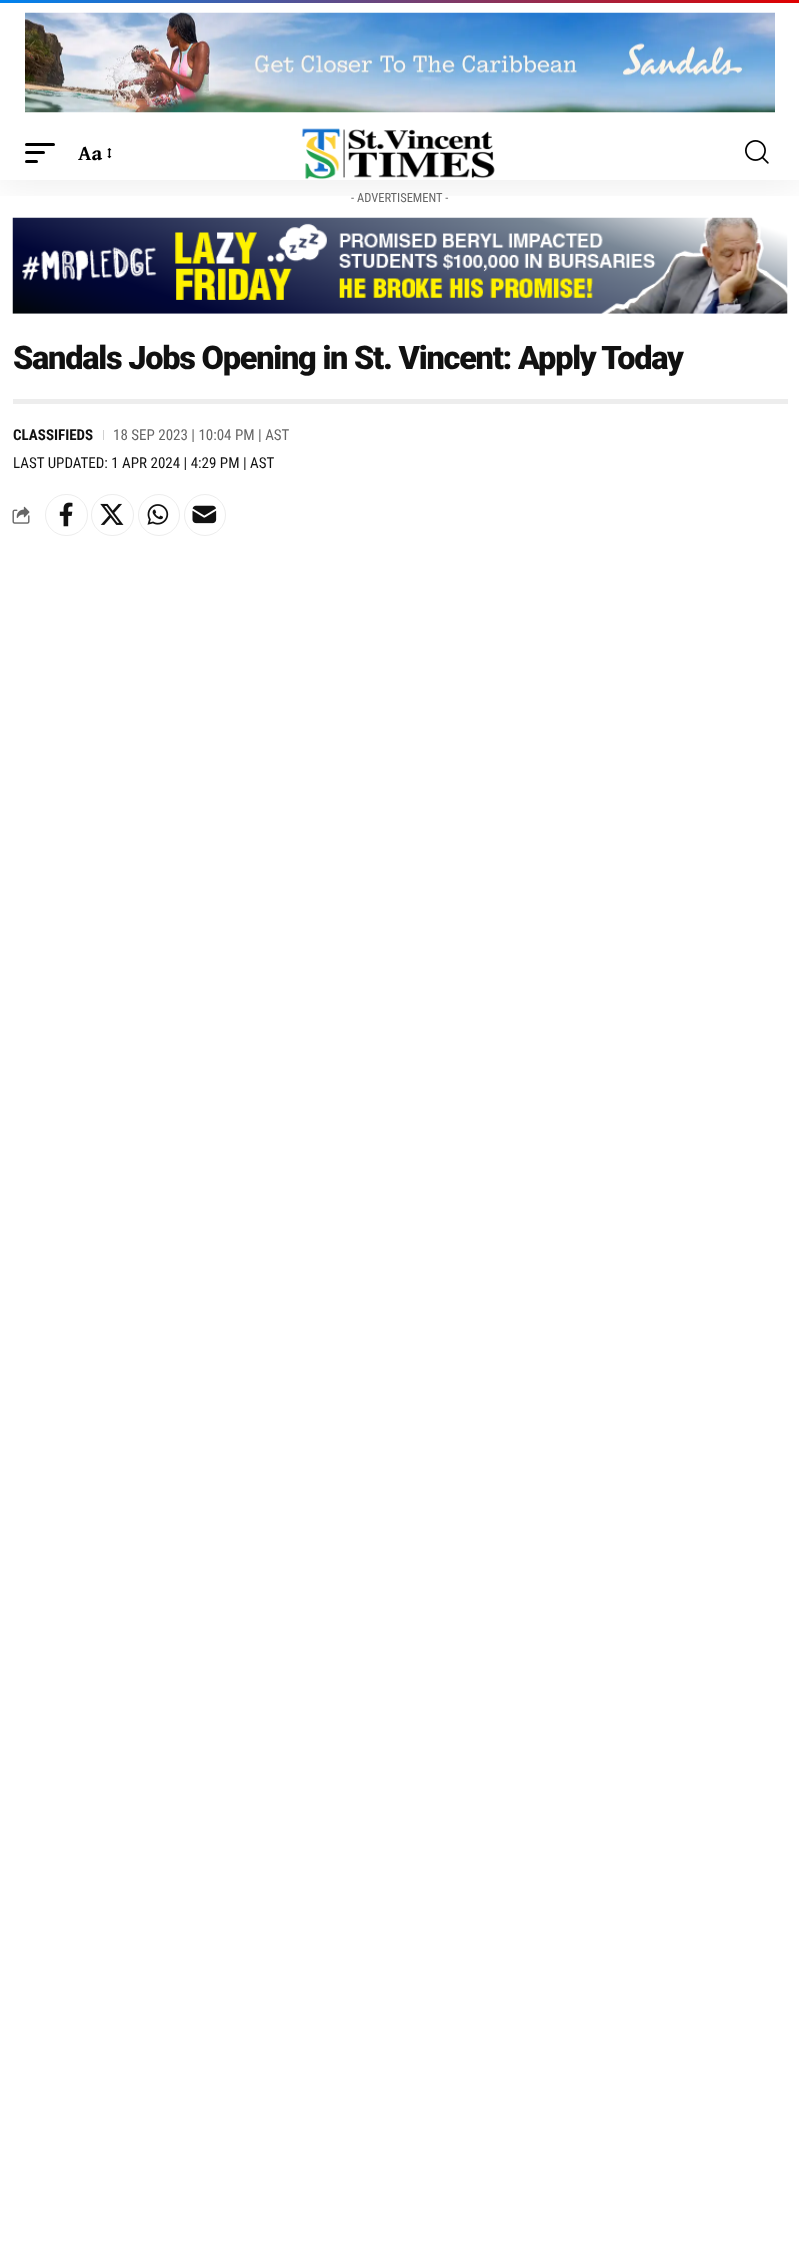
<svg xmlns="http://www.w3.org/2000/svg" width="799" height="2266">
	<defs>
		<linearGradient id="g1" gradientUnits="userSpaceOnUse" x1="0" y1="1.3" x2="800" y2="1.2"><stop offset="0" stop-color="#0083EF" /><stop offset="1" stop-color="#E00000" /></linearGradient>
		<clipPath id="clip1"><rect x="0" y="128" width="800" height="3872" /></clipPath>
		<clipPath id="clip2"><rect x="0" y="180" width="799" height="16" /></clipPath>
	</defs>
	<rect width="100%" height="100%" fill="#FFFFFF" />
	<image x="25" y="12" width="750" height="101" href="assets/img1.png" />
	<rect x="0" y="0" width="799" height="3" fill="url(#g1)" />
	<image x="12" y="217" width="776" height="97" href="assets/img5.png" />
	<g clip-path="url(#clip1)">
		<g clip-path="url(#clip2)">
			<rect x="0" y="133" width="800" height="52" fill="#000000" fill-opacity="0.07" filter="blur(19px)" />
		</g>
	</g>
	<rect x="25" y="143" width="30" height="3" rx="1.5" fill="#000000" />
	<rect x="25" y="151" width="20" height="3" rx="1.5" fill="#000000" />
	<rect x="25" y="160" width="13" height="3" rx="1.5" fill="#000000" />
	<text x="78" y="160" font-family="Gentium Book Plus" font-size="21" font-weight="700" fill="#000000">Aa</text>
	<image x="107" y="148" width="5" height="11" href="assets/img2.png" />
	<image x="301" y="128" width="194" height="52" href="assets/img3.png" />
	<image x="745" y="140" width="24" height="24" href="assets/img4.png" />
	<text x="351" y="202" font-family="Roboto Condensed" font-size="12.5" fill="#666666">- ADVERTISEMENT -</text>
	<text x="13" y="369" font-family="Roboto" font-size="32.5" font-weight="900" letter-spacing="-1.25" fill="#111111">Sandals Jobs Opening in St. Vincent: Apply Today</text>
	<rect x="13" y="399" width="775" height="5" fill="#EDEDED" />
	<text x="13" y="440" font-family="Roboto Condensed" font-size="15" font-weight="700" fill="#111111">CLASSIFIEDS</text>
	<rect x="103" y="430" width="1" height="10" fill="#D1D1D1" />
	<text x="113" y="440" font-family="Roboto Condensed" font-size="15" fill="#666666">18 SEP 2023 | 10:04 PM | AST</text>
	<text x="13" y="468" font-family="Roboto Condensed" font-size="15" fill="#111111">LAST UPDATED: 1 APR 2024 | 4:29 PM | AST</text>
	<image x="12" y="506" width="18" height="18" href="assets/img6.png" />
	<rect x="45.5" y="494.5" width="42" height="41" rx="20.5" fill="none" stroke="#EDEDED" />
	<image x="59" y="502" width="14" height="25" href="assets/img7.png" />
	<rect x="91.5" y="494.5" width="42" height="41" rx="20.5" fill="none" stroke="#EDEDED" />
	<image x="100" y="503" width="24" height="22" href="assets/img8.png" />
	<circle cx="159" cy="515" r="20.5" fill="none" stroke="#EDEDED" />
	<image x="147" y="504" width="22" height="21" href="assets/img9.png" />
	<circle cx="205" cy="515" r="20.5" fill="none" stroke="#EDEDED" />
	<image x="192" y="505" width="25" height="19" href="assets/img10.png" />
</svg>
